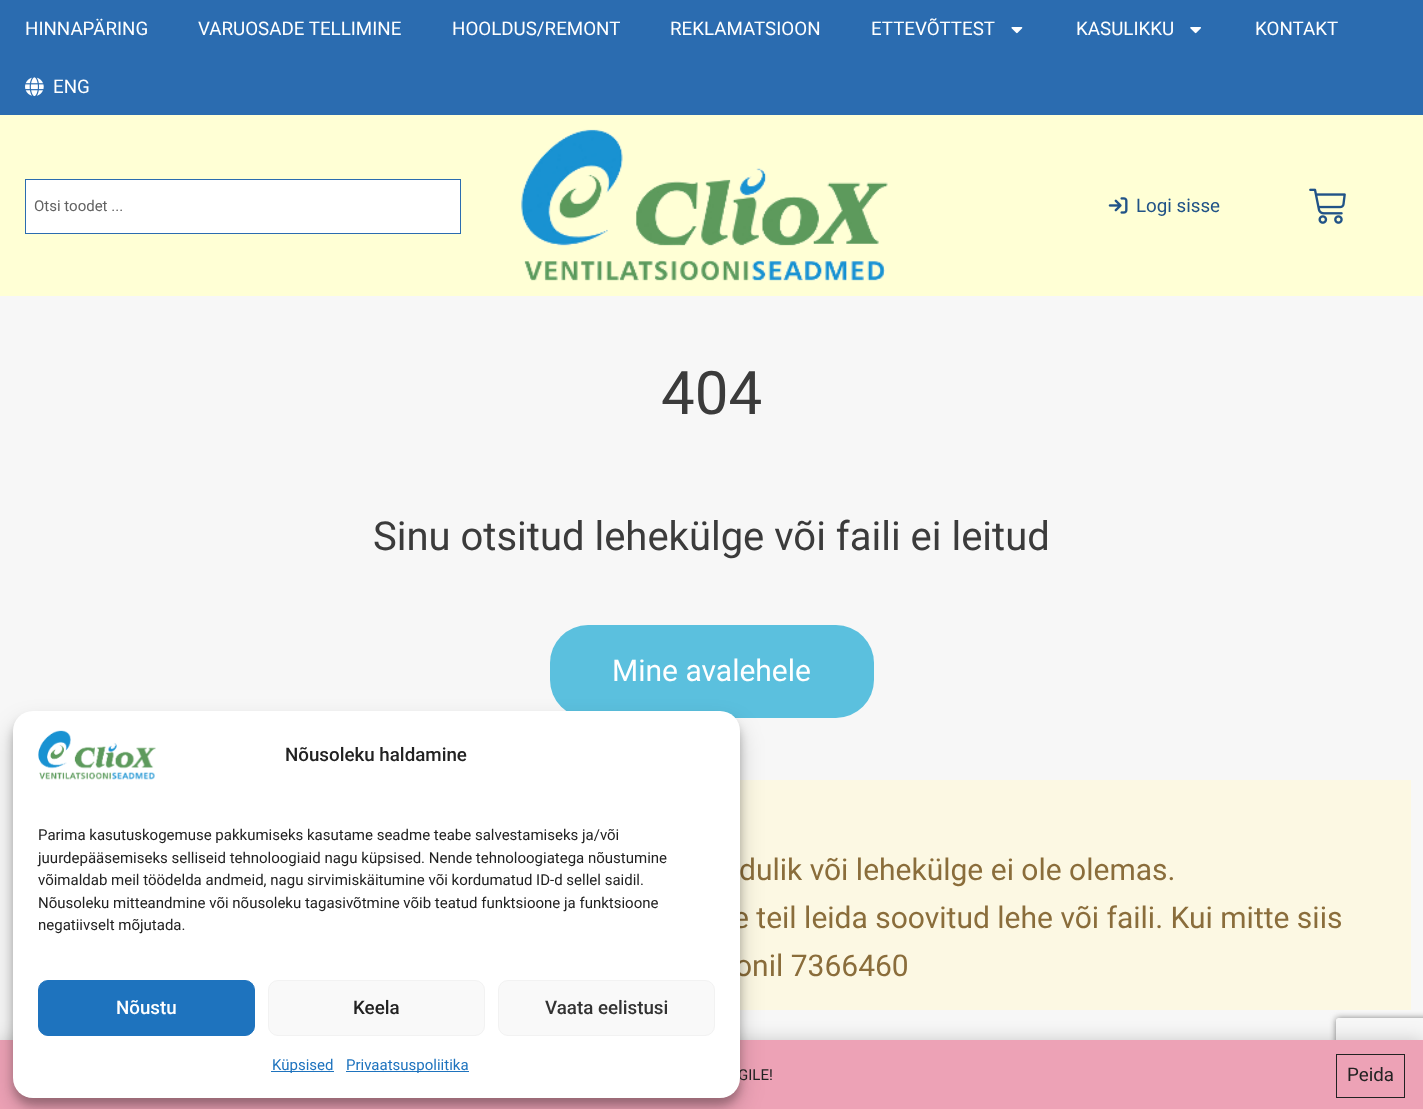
<svg xmlns="http://www.w3.org/2000/svg" width="1423" height="1109">
	<defs>
		<clipPath id="clip1"><path d="M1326 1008H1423V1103H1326ZM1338.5 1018H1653.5C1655 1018 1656 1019 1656 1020.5V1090.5C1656 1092 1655 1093 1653.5 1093H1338.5C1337 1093 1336 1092 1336 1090.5V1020.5C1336 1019 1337 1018 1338.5 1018Z" clip-rule="evenodd" /></clipPath>
	</defs>
	<rect width="100%" height="100%" fill="#F7F7F7" />
	<rect x="0" y="0" width="1423" height="115" fill="#2B6CB0" />
	<g font-family="Roboto" font-size="18.75" fill="#FFFFFF">
		<text x="25" y="35">HINNAPÄRING</text>
		<text x="198" y="35">VARUOSADE TELLIMINE</text>
		<text x="452" y="35">HOOLDUS/REMONT</text>
		<text x="670" y="35">REKLAMATSIOON</text>
		<text x="871" y="35">ETTEVÕTTEST</text>
	</g>
	<image x="1011" y="27" width="12" height="7" href="assets/img1.png" />
	<text x="1076" y="35" font-family="Roboto" font-size="18.75" fill="#FFFFFF">KASULIKKU</text>
	<image x="1190" y="27" width="11" height="7" href="assets/img2.png" />
	<text x="1255" y="35" font-family="Roboto" font-size="18.75" fill="#FFFFFF">KONTAKT</text>
	<image x="25" y="77" width="19" height="20" href="assets/img3.png" />
	<text x="53" y="93" font-family="Roboto" font-size="18.75" fill="#FFFFFF">ENG</text>
	<rect x="0" y="115" width="1423" height="181" fill="#FFFFD5" />
	<rect x="25.5" y="179.5" width="435" height="54" fill="#FFFFFF" stroke="#2B6CB0" />
	<text x="34" y="211" font-family="Roboto" font-size="15" fill="#626262">Otsi toodet ...</text>
	<image x="521" y="129" width="367" height="152" href="assets/img4.png" />
	<image x="1108" y="197" width="20" height="17" href="assets/img5.png" />
	<text x="1136" y="212" font-family="Roboto" font-size="18.75" fill="#215387">Logi sisse</text>
	<image x="1309" y="188" width="37" height="36" href="assets/img6.png" />
	<text x="661" y="414" font-family="Roboto" font-size="60" fill="#3B3B3B">404</text>
	<text x="373" y="550" font-family="Roboto" font-size="40" fill="#3B3B3B">Sinu otsitud lehekülge või faili ei leitud</text>
	<rect x="550" y="625" width="324" height="93" rx="38" fill="#5BC0DE" />
	<text x="612" y="681" font-family="Roboto" font-size="30" fill="#FFFFFF">Mine avalehele</text>
	<rect x="740" y="780" width="671" height="230" fill="#FCF8E3" />
	<g font-family="Roboto" font-size="30" fill="#8A6D3B">
		<text x="739" y="880">dulik või lehekülge ei ole olemas.</text>
		<text x="733" y="928">e teil leida soovitud lehe või faili. Kui mitte siis</text>
		<text x="735" y="976">onil 7366460</text>
	</g>
	<g clip-path="url(#clip1)">
		<rect x="1336" y="1018" width="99" height="75" rx="2.5" fill="#808080" filter="blur(3px)" />
	</g>
	<rect x="0" y="1041" width="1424" height="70" fill="#000000" fill-opacity="0.2" filter="blur(9.5px)" />
	<rect x="0" y="1040" width="1423" height="69" fill="#EDA2B6" />
	<rect x="13" y="719" width="727" height="386" rx="20" fill="#000000" fill-opacity="0.23" filter="blur(4px)" />
	<rect x="13" y="724" width="727" height="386" rx="20" fill="#000000" fill-opacity="0.19" filter="blur(12.5px)" />
	<text x="738" y="1080" font-family="Roboto" font-size="15" fill="#222222">GILE!</text>
	<rect x="13" y="711" width="727" height="387" rx="20" fill="#FFFFFF" />
	<image x="38" y="730" width="118" height="50" href="assets/img7.png" />
	<text x="285" y="761" font-family="Roboto" font-size="18.75" font-weight="500" fill="#222222">Nõusoleku haldamine</text>
	<g font-family="Roboto" font-size="15" fill="#222222">
		<text x="38" y="840">Parima kasutuskogemuse pakkumiseks kasutame seadme teabe salvestamiseks ja/või</text>
		<text x="38" y="863">juurdepääsemiseks selliseid tehnoloogiaid nagu küpsised. Nende tehnoloogiatega nõustumine</text>
		<text x="38" y="885">võimaldab meil töödelda andmeid, nagu sirvimiskäitumine või kordumatud ID-d sellel saidil.</text>
		<text x="38" y="908">Nõusoleku mitteandmine või nõusoleku tagasivõtmine võib teatud funktsioone ja funktsioone</text>
		<text x="38" y="930">negatiivselt mõjutada.</text>
	</g>
	<rect x="38.5" y="980.5" width="216" height="55" rx="9.5" fill="#1E73BE" stroke="#1E73BE" />
	<text x="116" y="1014" font-family="Roboto" font-size="18.75" font-weight="500" fill="#FFFFFF">Nõustu</text>
	<rect x="268.5" y="980.5" width="216" height="55" rx="9.5" fill="#F9F9F9" stroke="#F2F2F2" />
	<text x="353" y="1014" font-family="Roboto" font-size="18.75" font-weight="500" fill="#222222">Keela</text>
	<rect x="498.5" y="980.5" width="216" height="55" rx="9.5" fill="#F9F9F9" stroke="#F2F2F2" />
	<text x="545" y="1014" font-family="Roboto" font-size="18.75" font-weight="500" fill="#333333">Vaata eelistusi</text>
	<rect x="271" y="1071" width="63" height="1" fill="#1E73BE" />
	<text x="272" y="1070" font-family="Roboto" font-size="15" fill="#1E73BE">Küpsised</text>
	<rect x="346" y="1071" width="123" height="1" fill="#1E73BE" />
	<text x="346" y="1070" font-family="Roboto" font-size="15" fill="#1E73BE">Privaatsuspoliitika</text>
	<rect x="1336.5" y="1054.5" width="68" height="43" fill="none" stroke="#222222" />
	<text x="1347" y="1081" font-family="Roboto" font-size="18.75" fill="#222222">Peida</text>
</svg>
